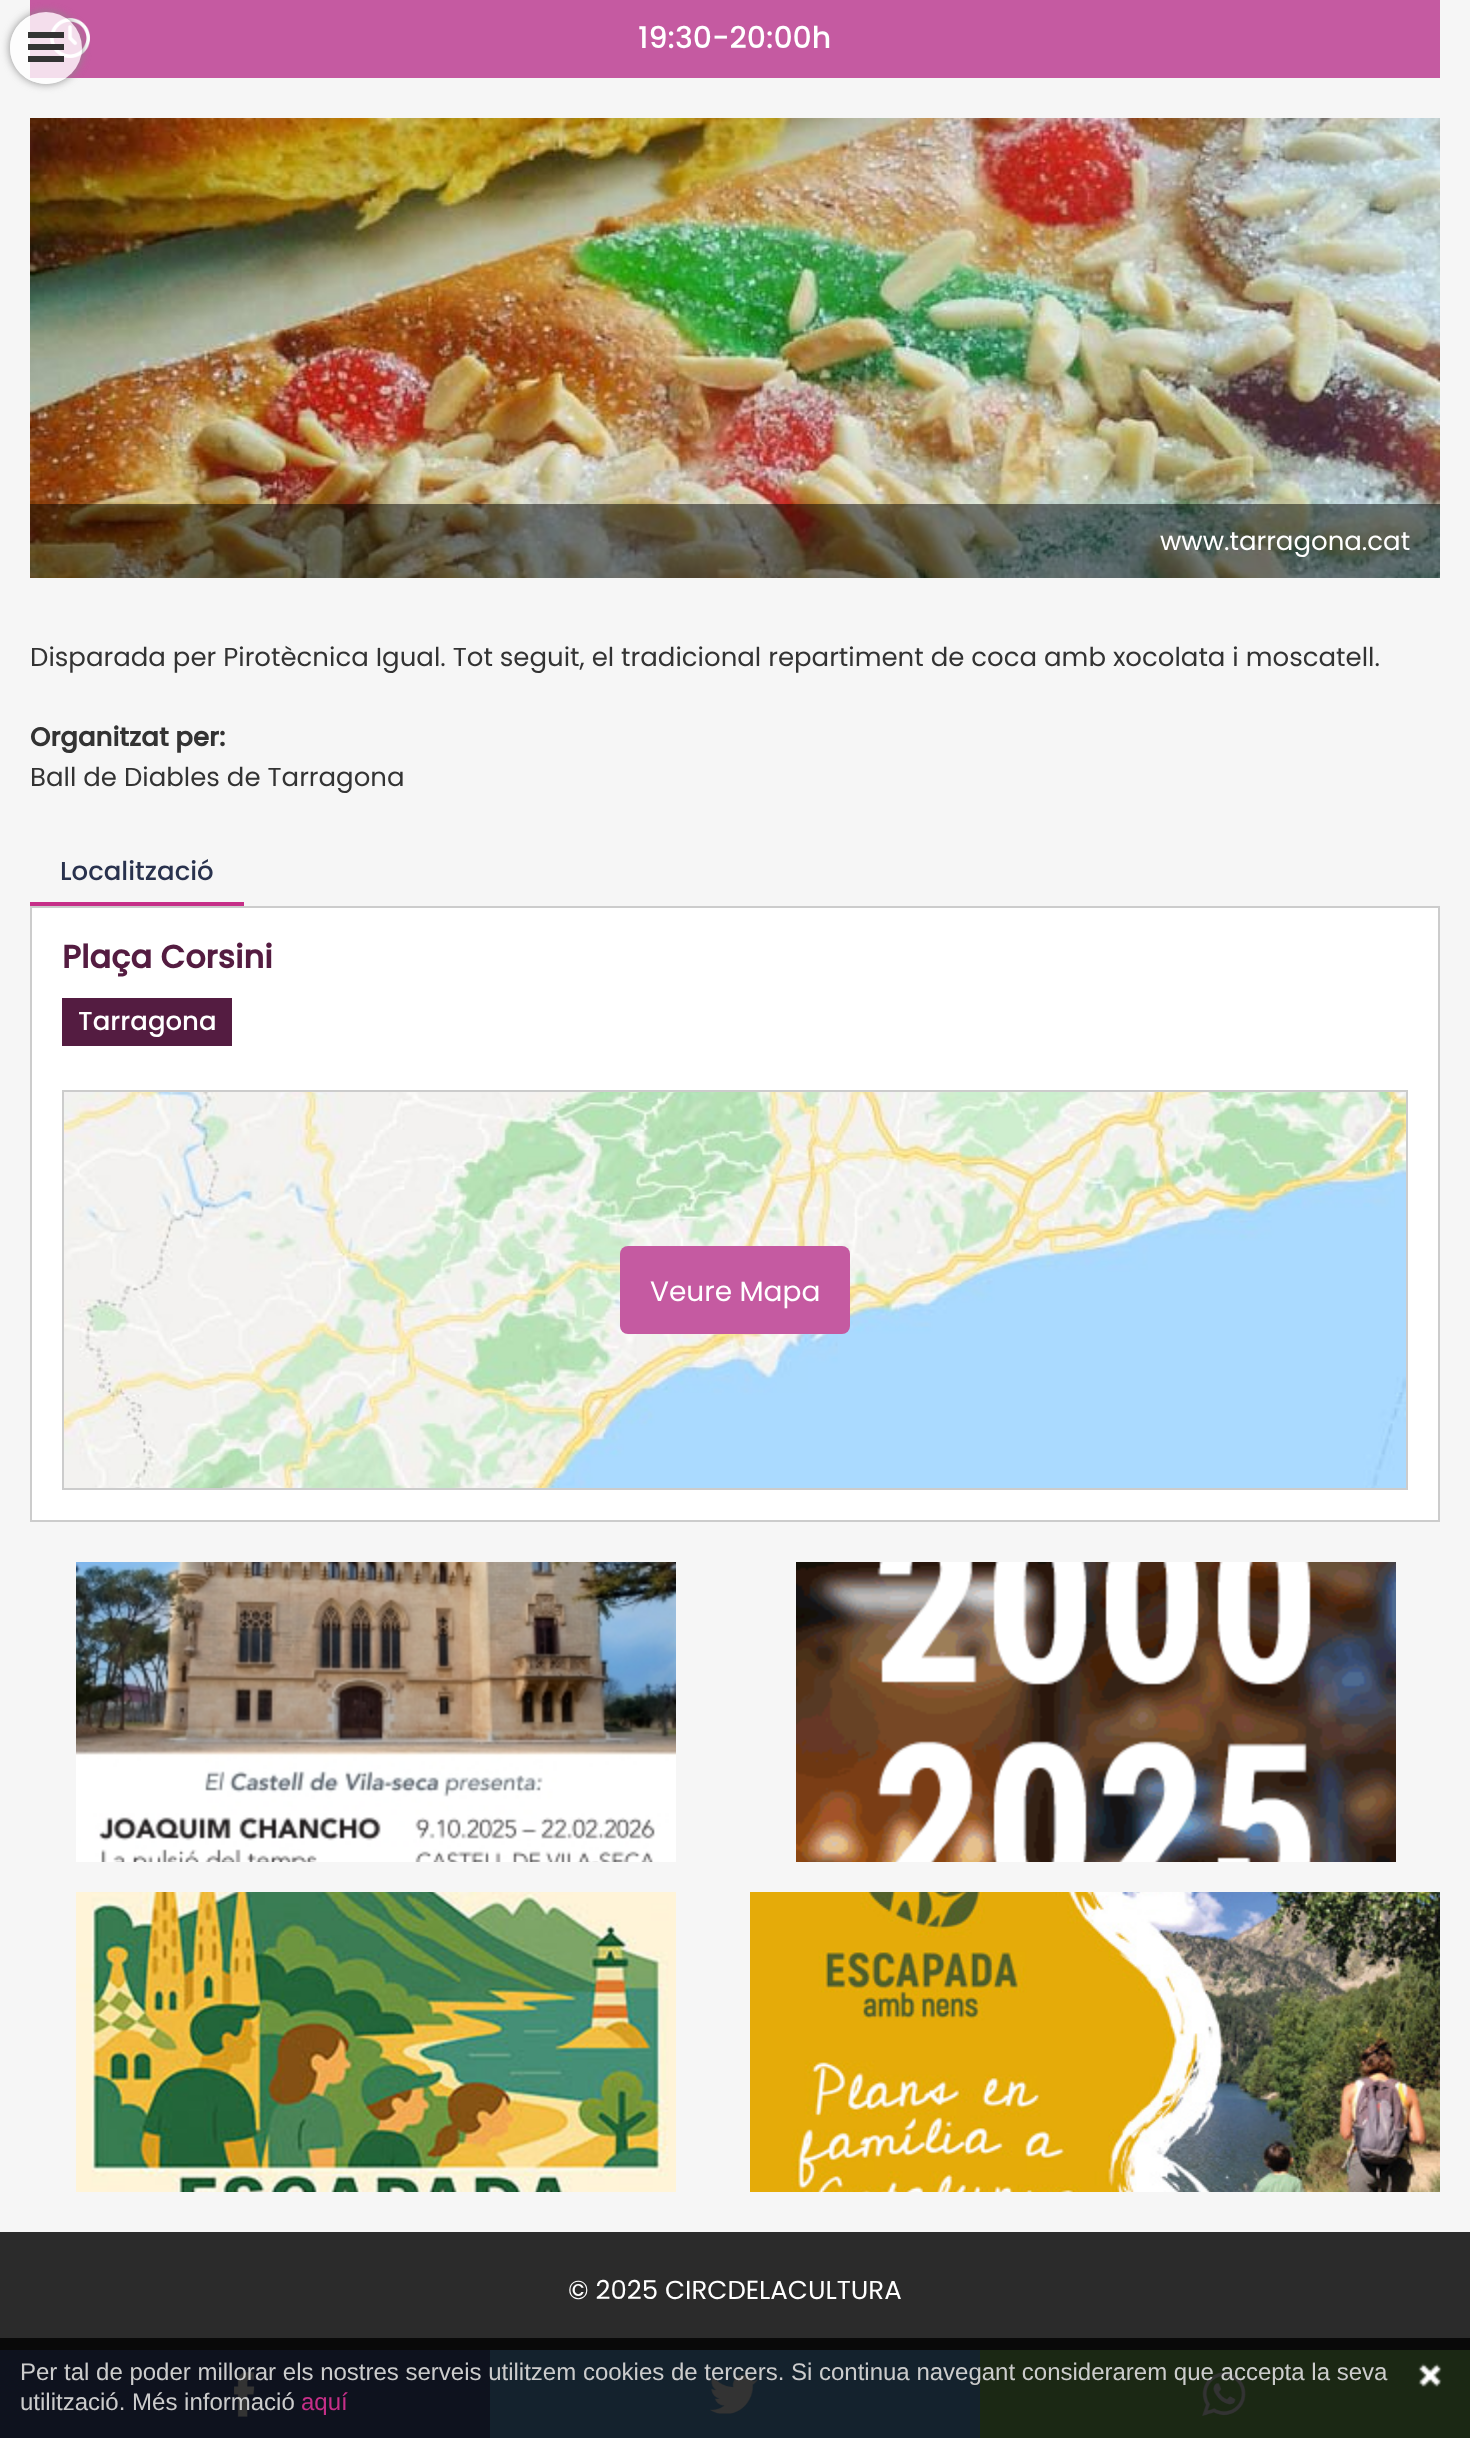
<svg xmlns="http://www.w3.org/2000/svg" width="1470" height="2438">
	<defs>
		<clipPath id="clip1"><path d="M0 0H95V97H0ZM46 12C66 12 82 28 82 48C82 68 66 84 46 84C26 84 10 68 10 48C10 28 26 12 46 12Z" clip-rule="evenodd" /></clipPath>
	</defs>
	<rect width="100%" height="100%" fill="#F6F6F6" />
	<rect x="30" y="0" width="1410" height="78" fill="#C55AA1" />
	<image x="50" y="18" width="40" height="40" href="assets/img1.png" />
	<g clip-path="url(#clip1)">
		<rect x="10" y="12" width="72" height="72" rx="36" fill="#888888" filter="blur(4px)" />
	</g>
	<circle cx="46" cy="48" r="36" fill="#FFFFFF" fill-opacity="0.8" />
	<rect x="28" y="32" width="36" height="6" fill="#333333" />
	<rect x="28" y="44" width="36" height="6" fill="#333333" />
	<rect x="28" y="56" width="36" height="6" fill="#333333" />
	<text x="638" y="48" font-family="Poppins" font-size="30" font-weight="500" fill="#FFFFFF">19:30-20:00h</text>
	<image x="30" y="118" width="1410" height="460" href="assets/img2.png" />
	<rect x="30" y="504" width="1410" height="74" fill="#000000" fill-opacity="0.5" />
	<text x="1160" y="550" font-family="Poppins" font-size="26" fill="#FFFFFF">www.tarragona.cat</text>
	<text x="30" y="666" font-family="Poppins" font-size="26" fill="#333333">Disparada per Pirotècnica Igual. Tot seguit, el tradicional repartiment de coca amb xocolata i moscatell.</text>
	<text x="30" y="746" font-family="Poppins" font-size="26" font-weight="700" fill="#333333">Organitzat per:</text>
	<text x="30" y="786" font-family="Poppins" font-size="26" fill="#333333">Ball de Diables de Tarragona</text>
	<rect x="30" y="902" width="214" height="4" fill="#C62F88" />
	<text x="60" y="880" font-family="Poppins" font-size="26" font-weight="500" fill="#29324E">Localització</text>
	<rect x="31" y="907" width="1408" height="614" fill="#FFFFFF" stroke="#CCCCCC" stroke-width="2" />
	<text x="62" y="968" font-family="Poppins" font-size="32" font-weight="700" fill="#541C41">Plaça Corsini</text>
	<rect x="62" y="998" width="170" height="48" fill="#541C41" />
	<text x="78" y="1030" font-family="Poppins" font-size="26" font-weight="500" fill="#FFFFFF">Tarragona</text>
	<rect x="63" y="1091" width="1344" height="398" fill="none" stroke="#CCCCCC" stroke-width="2" />
	<image x="64" y="1092" width="1342" height="396" href="assets/img3.png" />
	<rect x="620" y="1246" width="230" height="88" rx="8" fill="#C55AA1" />
	<text x="650" y="1301" font-family="Poppins" font-size="28" fill="#FFFFFF">Veure Mapa</text>
	<image x="76" y="1562" width="600" height="300" href="assets/img4.png" />
	<image x="796" y="1562" width="600" height="300" href="assets/img5.png" />
	<image x="76" y="1892" width="600" height="300" href="assets/img6.png" />
	<image x="750" y="1892" width="690" height="300" href="assets/img7.png" />
	<rect x="0" y="2232" width="1470" height="106" fill="#2B2B2B" />
	<rect x="0" y="2338" width="1470" height="12" fill="#090909" />
	<text x="568" y="2299" font-family="Poppins" font-size="26" fill="#FFFFFF">© 2025 CIRCDELACULTURA</text>
	<rect x="0" y="2350" width="490" height="88" fill="#0E121E" />
	<image x="234" y="2372" width="21" height="45" href="assets/img8.png" />
	<rect x="490" y="2350" width="490" height="88" fill="#14222D" />
	<image x="710" y="2375" width="48" height="39" href="assets/img9.png" />
	<rect x="980" y="2350" width="490" height="88" fill="#1B2814" />
	<image x="1202" y="2372" width="44" height="44" href="assets/img10.png" />
	<text x="20" y="2380" font-family="Liberation Sans" font-size="24" fill="#CCCCCC">Per tal de poder millorar els nostres serveis utilitzem cookies de tercers. Si continua navegant considerarem que accepta la seva</text>
	<image x="1418" y="2363" width="24" height="24" href="assets/img11.png" />
	<text x="20" y="2410" font-family="Liberation Sans" font-size="24" fill="#CCCCCC">utilització. Més informació</text>
	<text x="301" y="2410" font-family="Liberation Sans" font-size="24" fill="#C62F88">aquí</text>
</svg>
